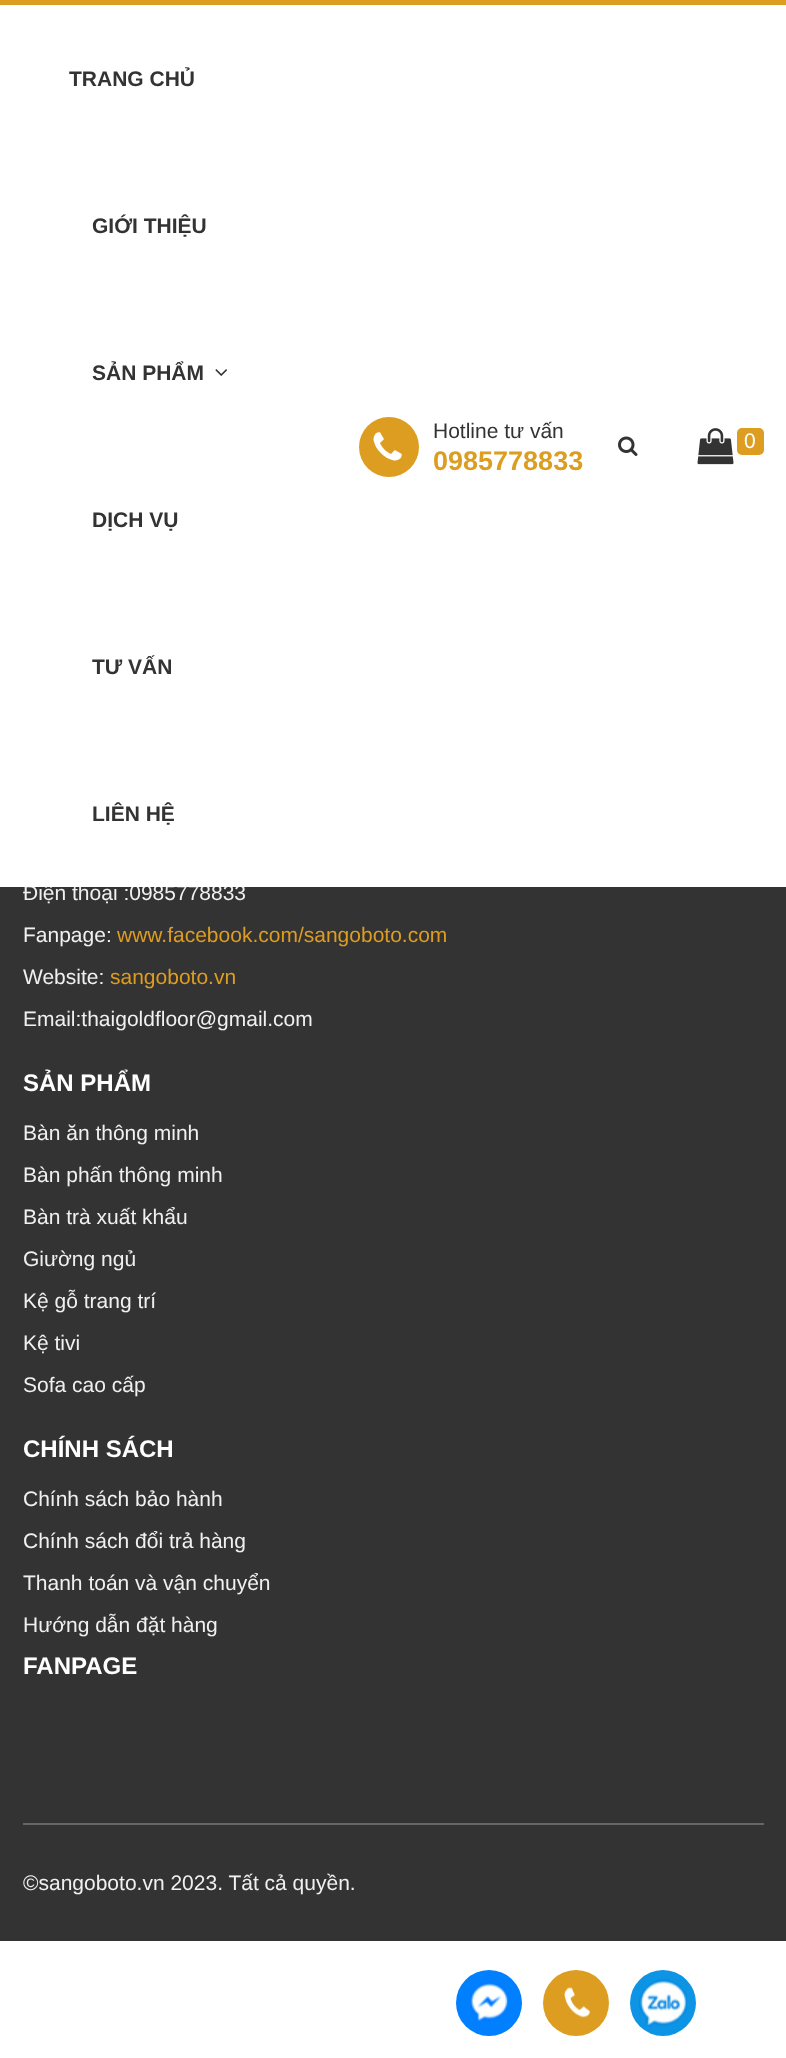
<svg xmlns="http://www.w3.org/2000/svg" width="786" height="2058">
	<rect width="100%" height="100%" fill="#FFFFFF" />
	<rect x="0" y="887" width="786" height="1054" fill="#333333" />
	<text x="23" y="900" font-family="Liberation Sans" font-size="21" fill="#F0F0F0">Điện thoại :0985778833</text>
	<rect x="24" y="884" width="220" height="3" fill="#FFFFFF" />
	<rect x="0" y="0" width="786" height="5" fill="#DD9D20" />
	<g font-family="Liberation Sans" font-size="21" font-weight="700" fill="#333333">
		<text x="69" y="86">TRANG CHỦ</text>
		<text x="92" y="233">GIỚI THIỆU</text>
		<text x="92" y="380">SẢN PHẨM</text>
	</g>
	<image x="215" y="369" width="12" height="7" href="assets/img1.png" />
	<g font-family="Liberation Sans" font-size="21" font-weight="700" fill="#333333">
		<text x="92" y="527">DỊCH VỤ</text>
		<text x="92" y="674">TƯ VẤN</text>
		<text x="92" y="821">LIÊN HỆ</text>
	</g>
	<circle cx="389" cy="447" r="30" fill="#DD9D20" />
	<image x="373" y="432" width="29" height="29" href="assets/img2.png" />
	<text x="433" y="438" font-family="Liberation Sans" font-size="21" fill="#333333">Hotline tư vấn</text>
	<text x="433" y="470" font-family="Liberation Sans" font-size="27" font-weight="700" fill="#DD9D20">0985778833</text>
	<image x="618" y="436" width="20" height="20" href="assets/img3.png" />
	<image x="697" y="428" width="37" height="37" href="assets/img4.png" />
	<rect x="737" y="428" width="27" height="27" rx="5" fill="#DD9D20" />
	<text x="744" y="448" font-family="Liberation Sans" font-size="21" fill="#FFFFFF">0</text>
	<text x="23" y="942" font-family="Liberation Sans" font-size="21" fill="#F0F0F0">Fanpage:</text>
	<text x="117" y="942" font-family="Liberation Sans" font-size="21" fill="#DD9D20">www.facebook.com/sangoboto.com</text>
	<text x="23" y="984" font-family="Liberation Sans" font-size="21" fill="#F0F0F0">Website:</text>
	<text x="110" y="984" font-family="Liberation Sans" font-size="21" fill="#DD9D20">sangoboto.vn</text>
	<text x="23" y="1026" font-family="Liberation Sans" font-size="21" fill="#F0F0F0">Email:thaigoldfloor@gmail.com</text>
	<text x="23" y="1091" font-family="Liberation Sans" font-size="24" font-weight="700" fill="#FFFFFF">SẢN PHẨM</text>
	<g font-family="Liberation Sans" font-size="21" fill="#F0F0F0">
		<text x="23" y="1140">Bàn ăn thông minh</text>
		<text x="23" y="1182">Bàn phấn thông minh</text>
		<text x="23" y="1224">Bàn trà xuất khẩu</text>
		<text x="23" y="1266">Giường ngủ</text>
		<text x="23" y="1308">Kệ gỗ trang trí</text>
		<text x="23" y="1350">Kệ tivi</text>
		<text x="23" y="1392">Sofa cao cấp</text>
	</g>
	<text x="23" y="1457" font-family="Liberation Sans" font-size="24" font-weight="700" fill="#FFFFFF">CHÍNH SÁCH</text>
	<g font-family="Liberation Sans" font-size="21" fill="#F0F0F0">
		<text x="23" y="1506">Chính sách bảo hành</text>
		<text x="23" y="1548">Chính sách đổi trả hàng</text>
		<text x="23" y="1590">Thanh toán và vận chuyển</text>
		<text x="23" y="1632">Hướng dẫn đặt hàng</text>
	</g>
	<text x="23" y="1674" font-family="Liberation Sans" font-size="24" font-weight="700" fill="#FFFFFF">FANPAGE</text>
	<rect x="23" y="1823" width="741" height="2" fill="#666666" />
	<text x="23" y="1890" font-family="Liberation Sans" font-size="21" fill="#F0F0F0">©sangoboto.vn 2023. Tất cả quyền.</text>
	<circle cx="489" cy="2003" r="33" fill="#007FFF" />
	<image x="470" y="1983" width="38" height="39" href="assets/img5.png" />
	<circle cx="576" cy="2003" r="33" fill="#DD9D20" />
	<image x="564" y="1987" width="26" height="31" href="assets/img6.png" />
	<circle cx="663" cy="2003" r="33" fill="#0D94E4" />
	<image x="639" y="1979" width="48" height="48" href="assets/img7.png" />
</svg>
